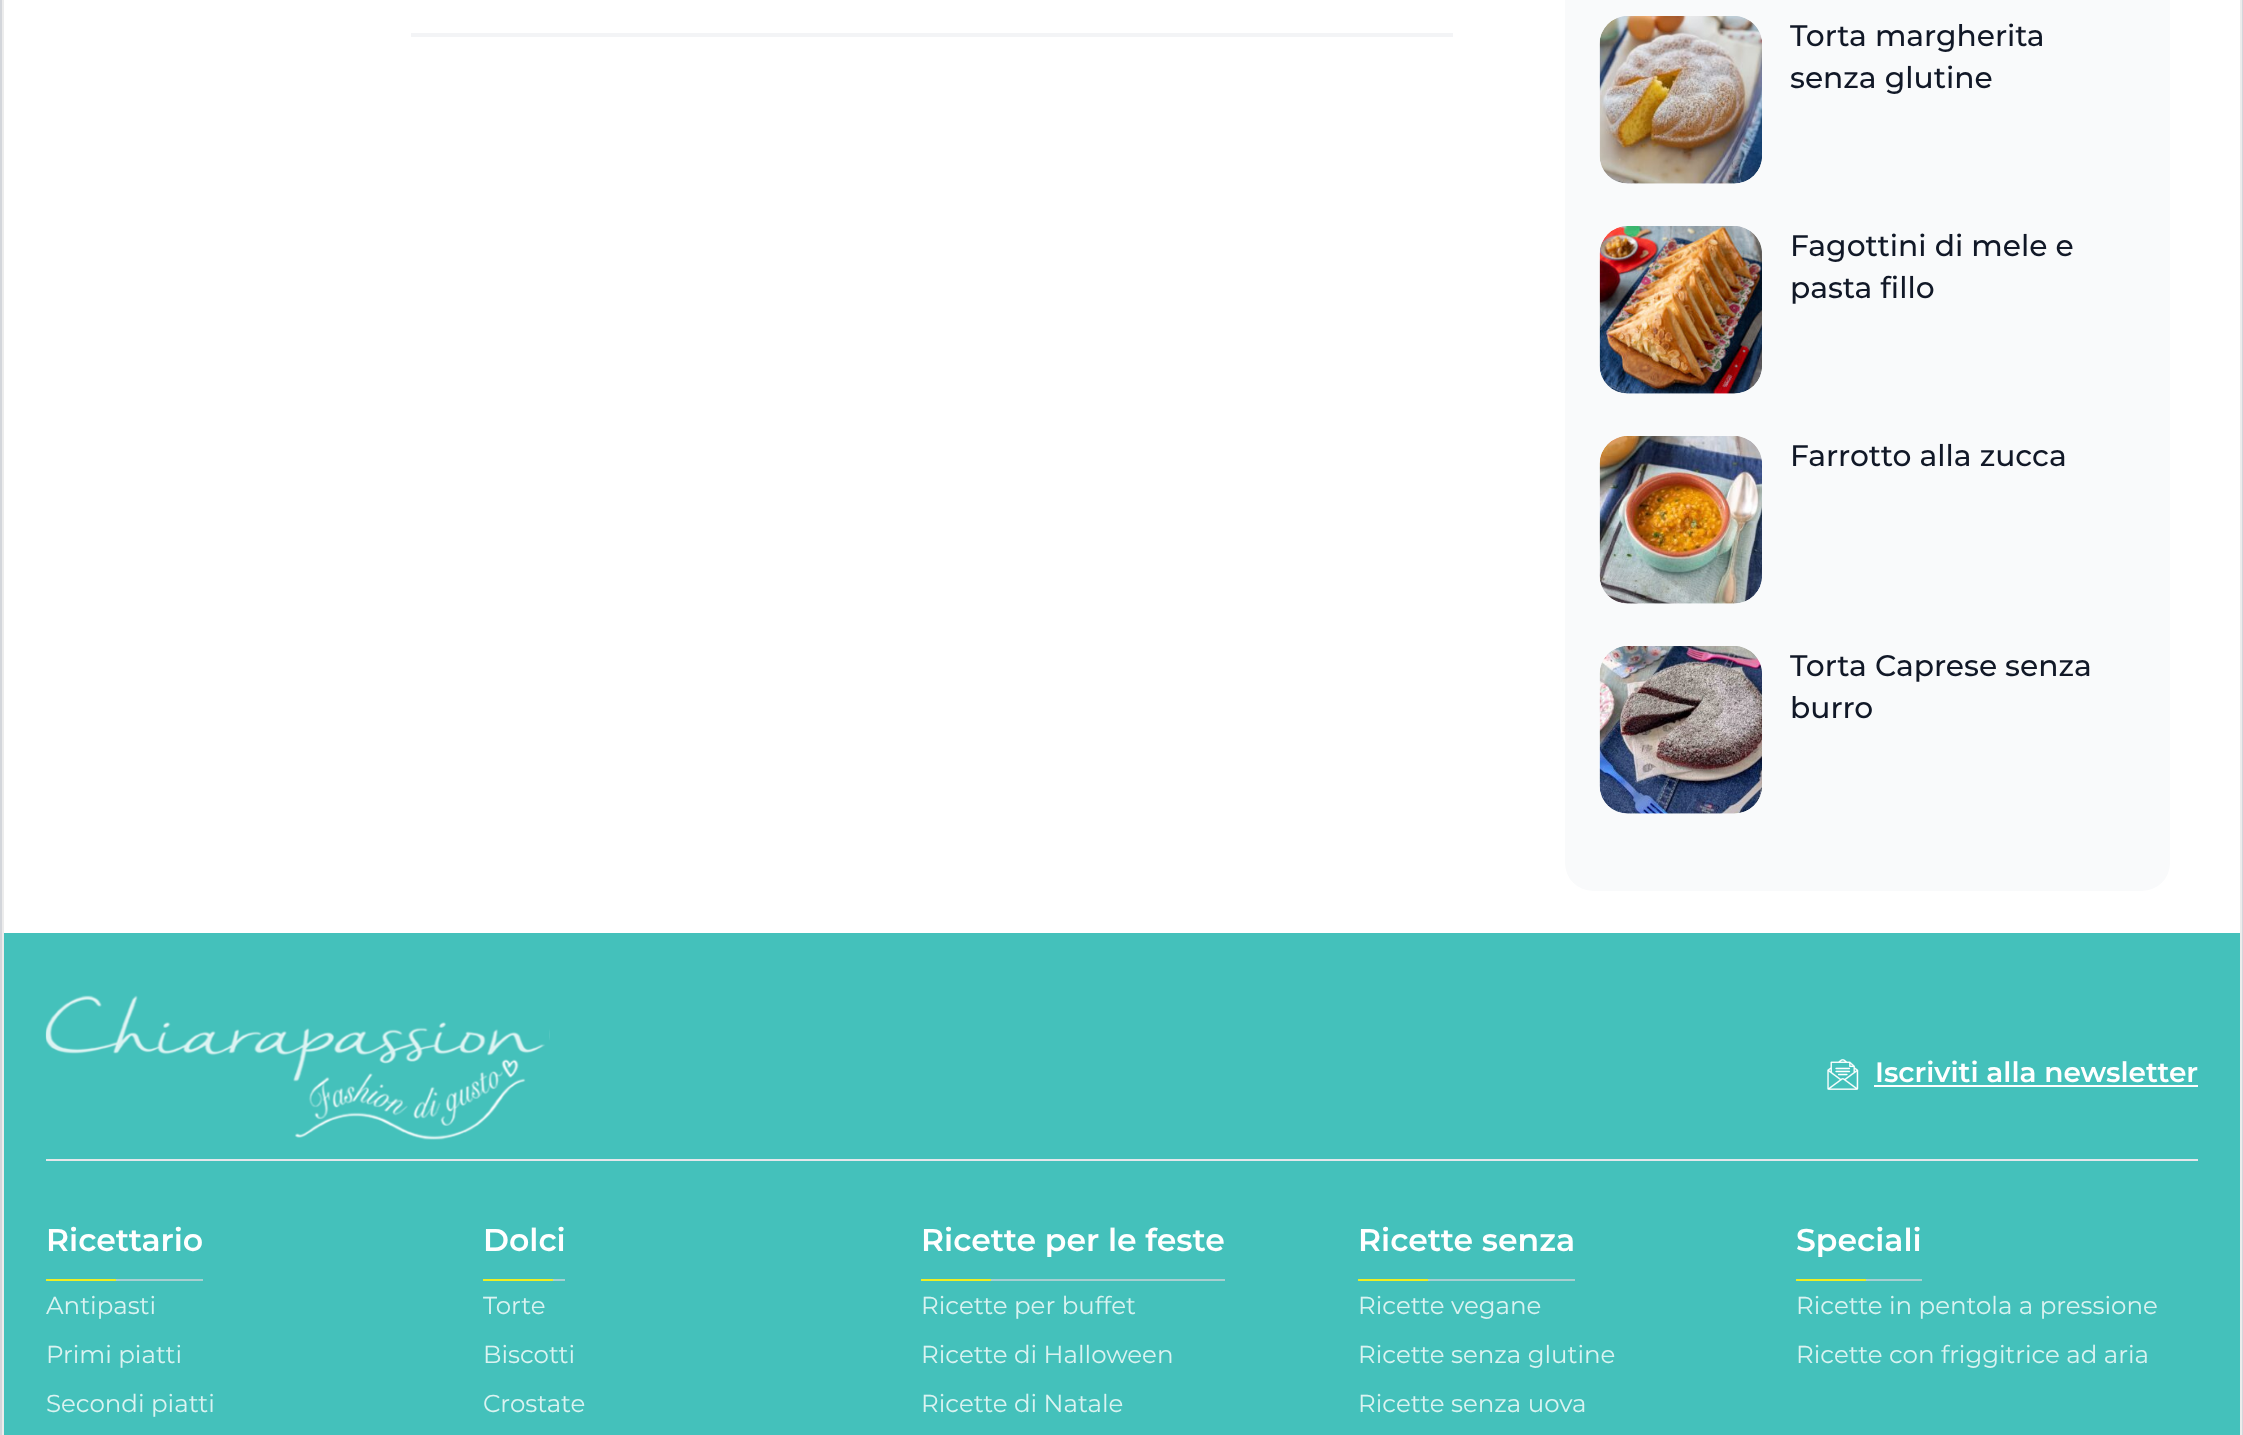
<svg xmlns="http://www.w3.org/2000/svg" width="2243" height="1435">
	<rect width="100%" height="100%" fill="#D3D6DB" />
	<rect x="4" y="0" width="2236" height="933" fill="#FFFFFF" />
	<rect x="2240" y="0" width="2" height="1435" fill="#ECECEC" />
	<rect x="2" y="0" width="2" height="1435" fill="#ECECEC" />
	<rect x="411" y="33" width="1042" height="4" fill="#F3F4F6" />
	<rect x="1565" y="-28" width="605" height="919" rx="28" fill="#F9FAFB" />
	<image x="1599" y="16" width="163" height="168" href="assets/img1.png" />
	<g font-family="Montserrat" font-size="29.75" font-weight="500" fill="#111827">
		<text x="1790" y="46">Torta margherita</text>
		<text x="1790" y="88">senza glutine</text>
	</g>
	<image x="1599" y="226" width="163" height="168" href="assets/img2.png" />
	<g font-family="Montserrat" font-size="29.75" font-weight="500" fill="#111827">
		<text x="1790" y="256">Fagottini di mele e</text>
		<text x="1790" y="298">pasta fillo</text>
	</g>
	<image x="1599" y="436" width="163" height="168" href="assets/img3.png" />
	<text x="1790" y="466" font-family="Montserrat" font-size="29.75" font-weight="500" fill="#111827">Farrotto alla zucca</text>
	<image x="1599" y="646" width="163" height="168" href="assets/img4.png" />
	<g font-family="Montserrat" font-size="29.75" font-weight="500" fill="#111827">
		<text x="1790" y="676">Torta Caprese senza</text>
		<text x="1790" y="718">burro</text>
	</g>
	<rect x="4" y="933" width="2236" height="502" fill="#44C1BB" />
	<rect x="46" y="1159" width="2152" height="2" fill="#E5E7EB" />
	<image x="45" y="995" width="505" height="145" href="assets/img5.png" />
	<image x="1827" y="1059" width="32" height="31" href="assets/img6.png" />
	<text x="1875" y="1082" font-family="Montserrat" font-size="28" font-weight="600" fill="#FFFFFF">Iscriviti alla newsletter</text>
	<rect x="1874" y="1085" width="324" height="2" fill="#FFFFFF" />
	<rect x="116" y="1279" width="87" height="2" fill="#A7CFD1" />
	<text x="46" y="1251" font-family="Montserrat" font-size="31.5" font-weight="600" fill="#FFFFFF">Ricettario</text>
	<rect x="46" y="1279" width="70" height="2" fill="#EEEE22" />
	<g font-family="Montserrat" font-size="24.5" fill="#DAF3F1">
		<text x="46" y="1314">Antipasti</text>
		<text x="46" y="1363">Primi piatti</text>
		<text x="46" y="1412">Secondi piatti</text>
	</g>
	<rect x="553" y="1279" width="12" height="2" fill="#A7CFD1" />
	<text x="483" y="1251" font-family="Montserrat" font-size="31.5" font-weight="600" fill="#FFFFFF">Dolci</text>
	<rect x="483" y="1279" width="70" height="2" fill="#EEEE22" />
	<g font-family="Montserrat" font-size="24.5" fill="#DAF3F1">
		<text x="483" y="1314">Torte</text>
		<text x="483" y="1363">Biscotti</text>
		<text x="483" y="1412">Crostate</text>
	</g>
	<rect x="991" y="1279" width="234" height="2" fill="#A7CFD1" />
	<text x="921" y="1251" font-family="Montserrat" font-size="31.5" font-weight="600" fill="#FFFFFF">Ricette per le feste</text>
	<rect x="921" y="1279" width="70" height="2" fill="#EEEE22" />
	<g font-family="Montserrat" font-size="24.5" fill="#DAF3F1">
		<text x="921" y="1314">Ricette per buffet</text>
		<text x="921" y="1363">Ricette di Halloween</text>
		<text x="921" y="1412">Ricette di Natale</text>
	</g>
	<rect x="1428" y="1279" width="147" height="2" fill="#A7CFD1" />
	<text x="1358" y="1251" font-family="Montserrat" font-size="31.5" font-weight="600" fill="#FFFFFF">Ricette senza</text>
	<rect x="1358" y="1279" width="70" height="2" fill="#EEEE22" />
	<g font-family="Montserrat" font-size="24.5" fill="#DAF3F1">
		<text x="1358" y="1314">Ricette vegane</text>
		<text x="1358" y="1363">Ricette senza glutine</text>
		<text x="1358" y="1412">Ricette senza uova</text>
	</g>
	<rect x="1866" y="1279" width="56" height="2" fill="#A7CFD1" />
	<text x="1796" y="1251" font-family="Montserrat" font-size="31.5" font-weight="600" fill="#FFFFFF">Speciali</text>
	<rect x="1796" y="1279" width="70" height="2" fill="#EEEE22" />
	<g font-family="Montserrat" font-size="24.5" fill="#DAF3F1">
		<text x="1796" y="1314">Ricette in pentola a pressione</text>
		<text x="1796" y="1363">Ricette con friggitrice ad aria</text>
	</g>
</svg>
